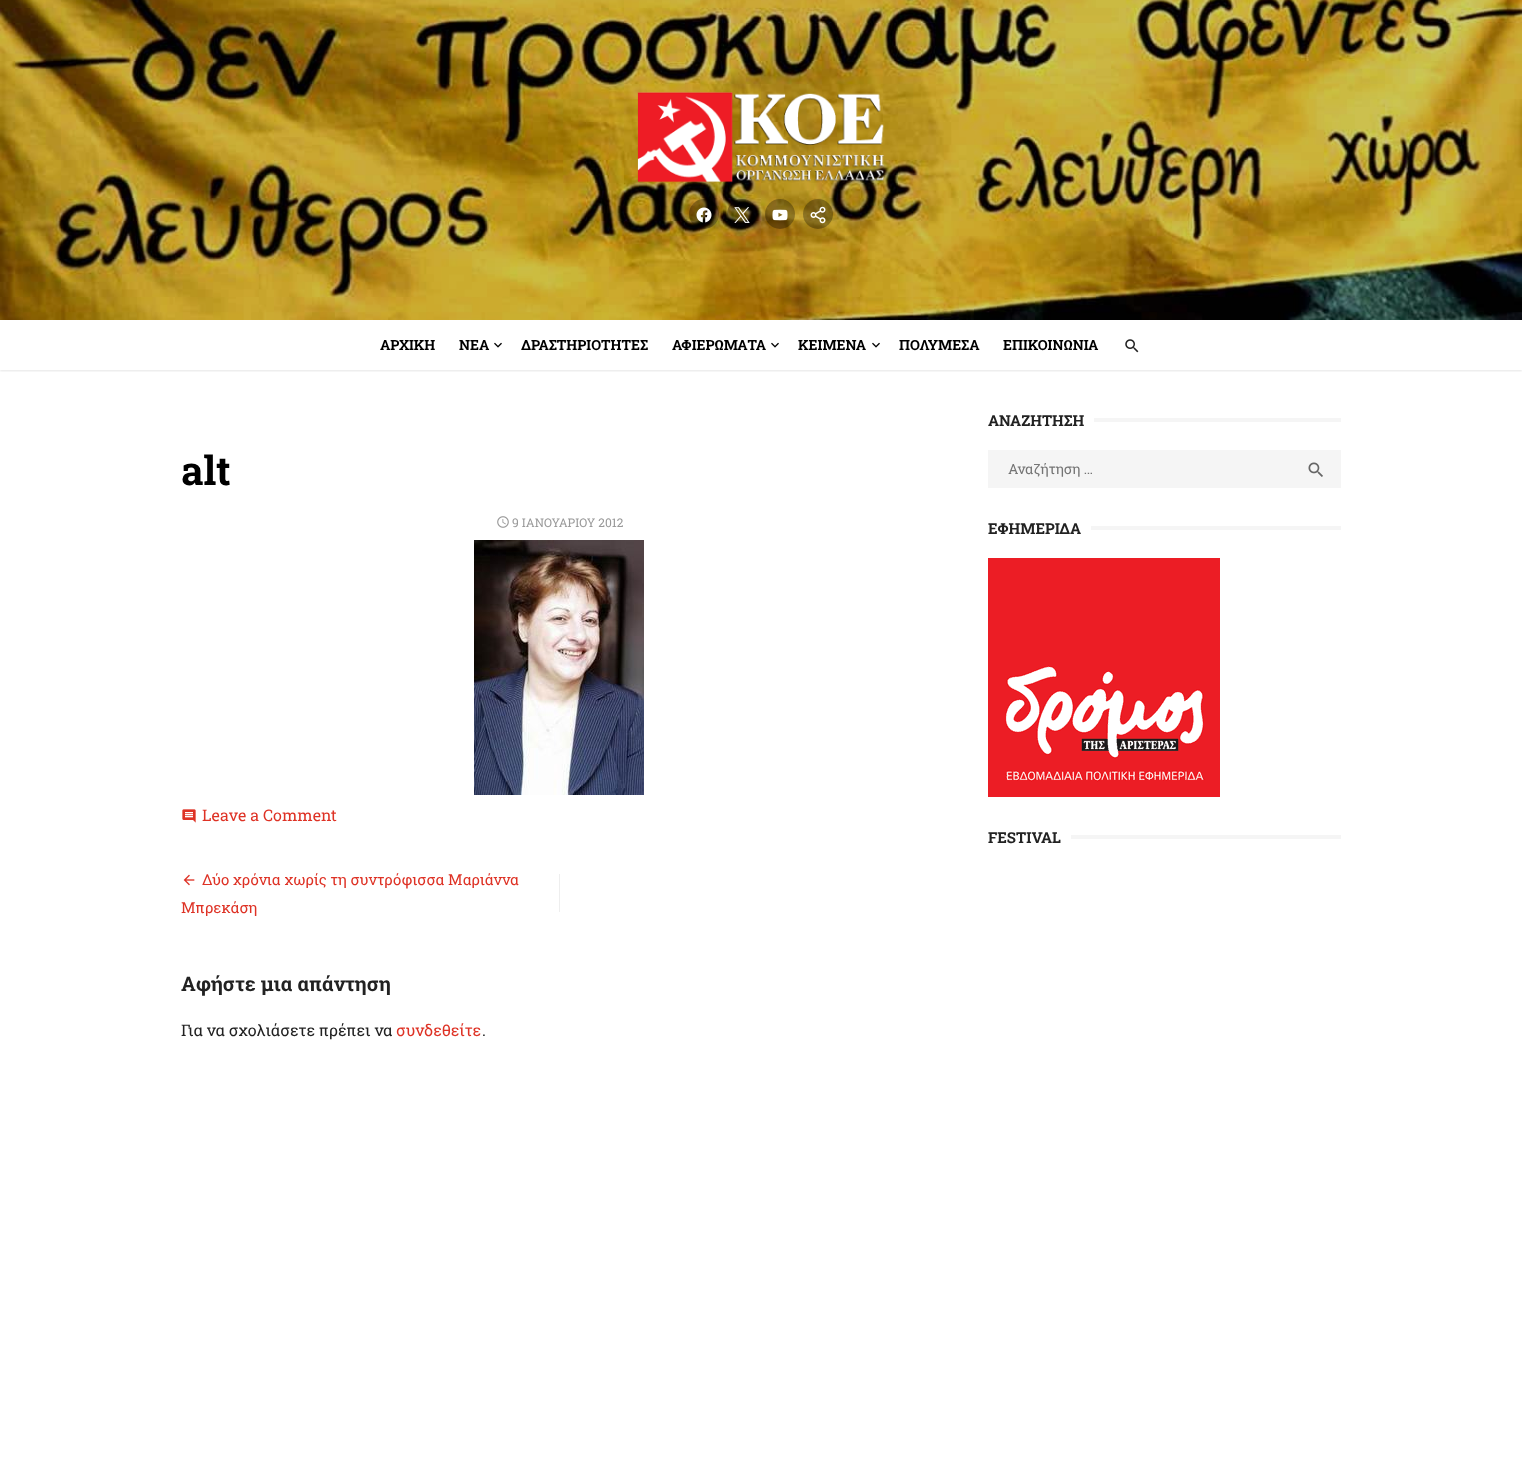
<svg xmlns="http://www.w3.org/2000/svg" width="1522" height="1458">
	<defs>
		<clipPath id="clip1"><rect x="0" y="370" width="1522" height="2" /></clipPath>
	</defs>
	<rect width="100%" height="100%" fill="#FFFFFF" />
	<g clip-path="url(#clip1)">
		<rect x="0" y="321" width="1522" height="50" fill="#000000" fill-opacity="0.1" filter="blur(1px)" />
	</g>
	<image x="0" y="0" width="1522" height="320" href="assets/img1.png" />
	<image x="637" y="92" width="248" height="91" href="assets/img2.png" />
	<circle cx="704" cy="214" r="15" fill="#000000" fill-opacity="0.3" />
	<image x="696" y="207" width="16" height="16" href="assets/img3.png" />
	<circle cx="742" cy="214" r="15" fill="#000000" fill-opacity="0.3" />
	<image x="734" y="207" width="16" height="16" href="assets/img4.png" />
	<circle cx="780" cy="214" r="15" fill="#000000" fill-opacity="0.3" />
	<image x="772" y="209" width="16" height="12" href="assets/img5.png" />
	<circle cx="818" cy="214" r="15" fill="#000000" fill-opacity="0.3" />
	<image x="810" y="206" width="16" height="18" href="assets/img6.png" />
	<g font-family="Roboto Slab" font-size="14" font-weight="700" fill="#000000">
		<text x="380" y="350">ΑΡΧΙΚΗ</text>
		<text x="459" y="350">ΝΕΑ</text>
	</g>
	<image x="494" y="342" width="8" height="6" href="assets/img7.png" />
	<g font-family="Roboto Slab" font-size="14" font-weight="700" fill="#000000">
		<text x="521" y="350">ΔΡΑΣΤΗΡΙΟΤΗΤΕΣ</text>
		<text x="672" y="350">ΑΦΙΕΡΩΜΑΤΑ</text>
	</g>
	<image x="771" y="342" width="8" height="6" href="assets/img7.png" />
	<text x="798" y="350" font-family="Roboto Slab" font-size="14" font-weight="700" fill="#000000">ΚΕΙΜΕΝΑ</text>
	<image x="872" y="342" width="8" height="6" href="assets/img7.png" />
	<g font-family="Roboto Slab" font-size="14" font-weight="700" fill="#000000">
		<text x="899" y="350">ΠΟΛΥΜΕΣΑ</text>
		<text x="1003" y="350">ΕΠΙΚΟΙΝΩΝΙΑ</text>
	</g>
	<image x="1125" y="339" width="14" height="14" href="assets/img8.png" />
	<text x="181" y="485" font-family="Roboto Slab" font-size="40" font-weight="700" fill="#000000">alt</text>
	<image x="497" y="516" width="12" height="12" href="assets/img9.png" />
	<text x="512" y="527" font-family="Roboto Slab" font-size="12" fill="#999999">9 ΙΑΝΟΥΑΡΙΟΥ 2012</text>
	<image x="474" y="540" width="170" height="255" href="assets/img10.png" />
	<image x="182" y="809" width="14" height="14" href="assets/img11.png" />
	<text x="202" y="821" font-family="Roboto Slab" font-size="16" fill="#DE3225">Leave a Comment</text>
	<image x="183" y="874" width="12" height="12" href="assets/img12.png" />
	<g font-family="Roboto Slab" font-size="15" fill="#DE3225">
		<text x="202" y="885">Δύο χρόνια χωρίς τη συντρόφισσα Μαριάννα</text>
		<text x="181" y="913">Μπρεκάση</text>
	</g>
	<rect x="559" y="874" width="1" height="38" fill="#EEEEEE" />
	<text x="181" y="991" font-family="Roboto Slab" font-size="20" font-weight="700" fill="#222222">Αφήστε μια απάντηση</text>
	<text x="181" y="1036" font-family="Roboto Slab" font-size="16" fill="#222222">Για να σχολιάσετε πρέπει να</text>
	<text x="396" y="1036" font-family="Roboto Slab" font-size="16" fill="#DE3225">συνδεθείτε</text>
	<text x="482" y="1036" font-family="Roboto Slab" font-size="16" fill="#222222">.</text>
	<text x="988" y="426" font-family="Roboto Slab" font-size="15" font-weight="700" fill="#222222">ΑΝΑΖΗΤΗΣΗ</text>
	<rect x="1094" y="418" width="247" height="4" fill="#F5F5F5" />
	<rect x="988" y="450" width="353" height="38" fill="#F5F5F5" />
	<text x="1008" y="474" font-family="Roboto Slab" font-size="14" fill="#757575">Αναζήτηση …</text>
	<image x="1308" y="462" width="15" height="15" href="assets/img13.png" />
	<text x="988" y="534" font-family="Roboto Slab" font-size="15" font-weight="700" fill="#222222">ΕΦΗΜΕΡΙΔΑ</text>
	<rect x="1091" y="526" width="250" height="4" fill="#F5F5F5" />
	<image x="988" y="558" width="232" height="239" href="assets/img14.png" />
	<text x="988" y="843" font-family="Roboto Slab" font-size="15" font-weight="700" fill="#222222">FESTIVAL</text>
	<rect x="1071" y="835" width="270" height="4" fill="#F5F5F5" />
</svg>
